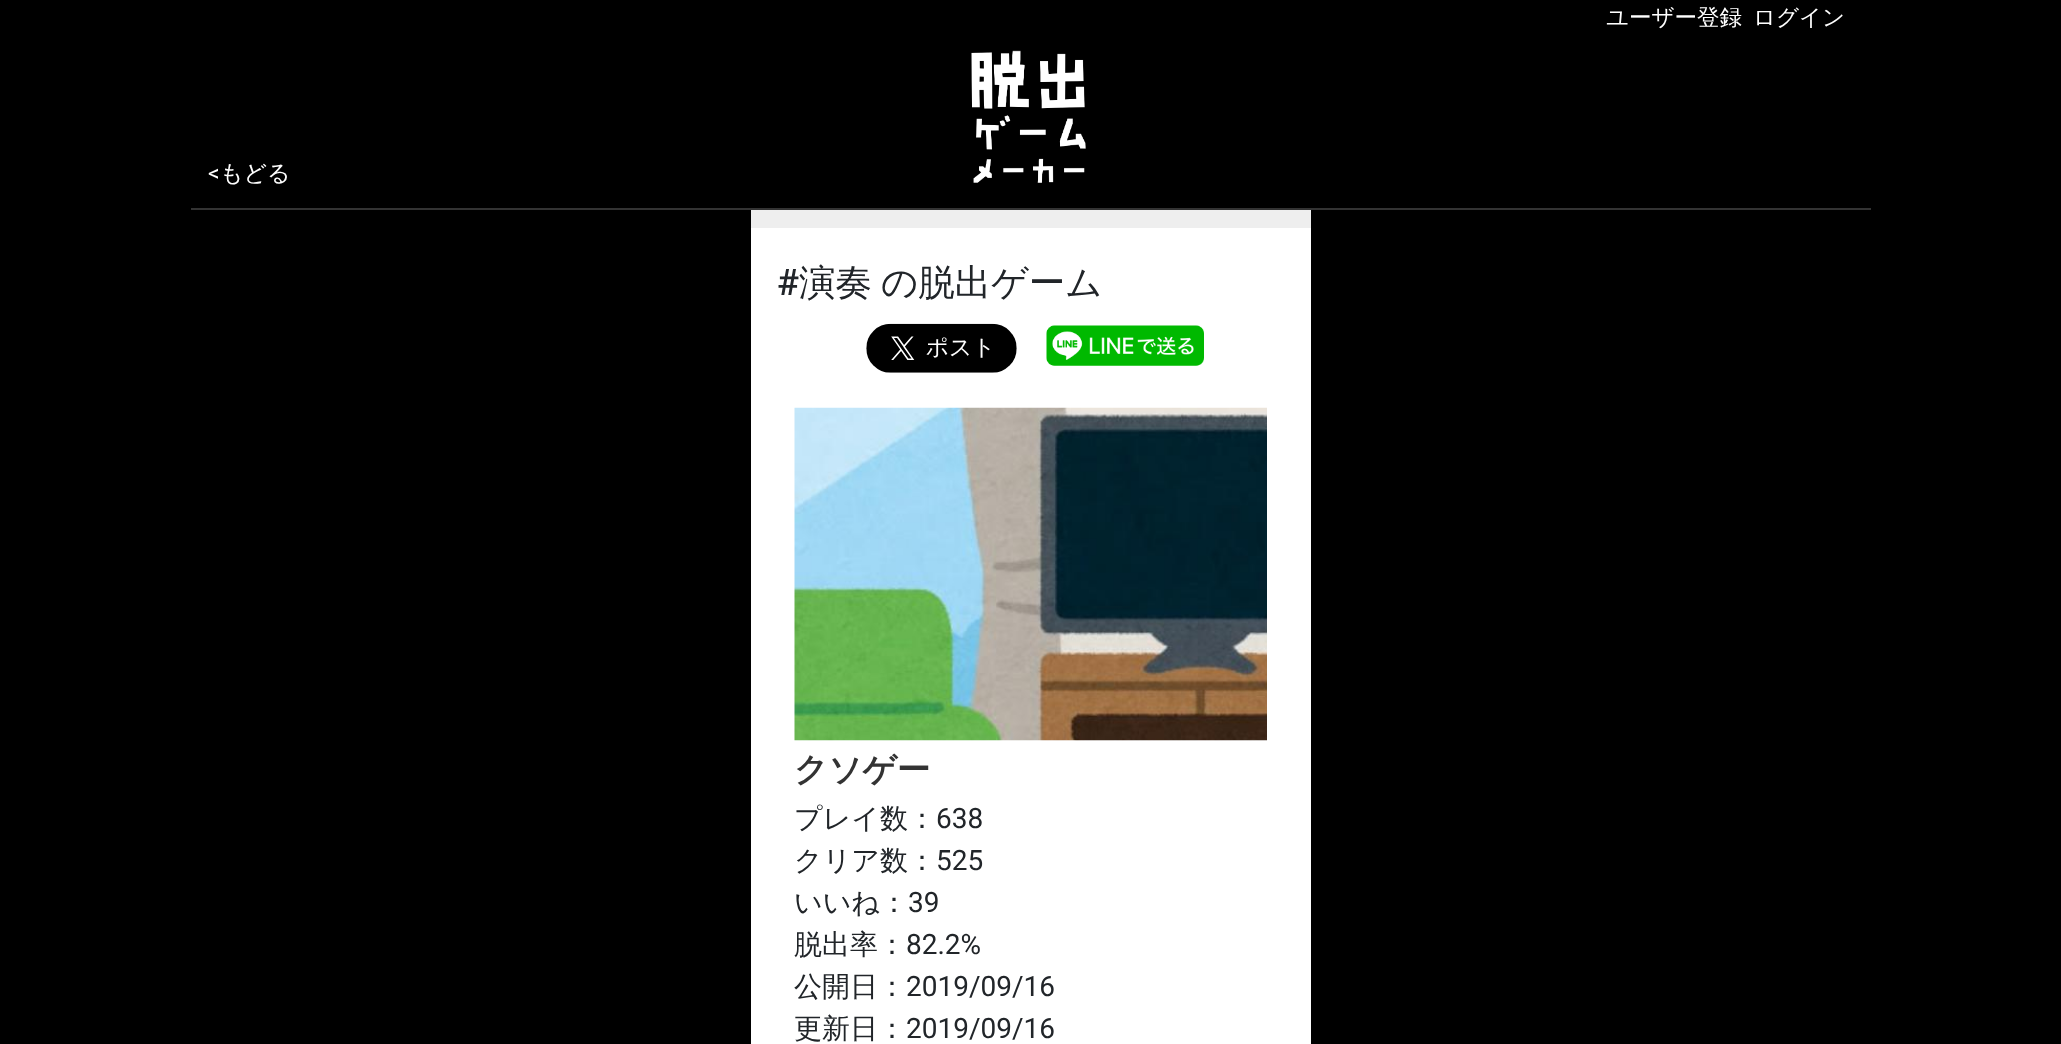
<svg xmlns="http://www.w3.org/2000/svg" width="2061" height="1044">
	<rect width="100%" height="100%" fill="#000000" />
	<g font-family="WenQuanYi Zen Hei" font-size="22.5" font-weight="500" fill="#FFFFFF">
		<text x="1606" y="25">ユーザー登録</text>
		<text x="1753" y="25">ログイン</text>
	</g>
	<rect x="191" y="208" width="1680" height="2" fill="#333333" />
	<text x="208" y="181" font-family="Roboto" font-size="23" fill="#FFFFFF">&lt;</text>
	<text x="220" y="181" font-family="WenQuanYi Zen Hei" font-size="23" font-weight="500" fill="#FFFFFF">もどる</text>
	<image x="971" y="50" width="115" height="133" href="assets/img1.png" />
	<rect x="751" y="228" width="560" height="816" fill="#FFFFFF" />
	<rect x="751" y="210" width="560" height="18" fill="#EEEEEE" />
	<text x="777" y="295" font-family="Roboto" font-size="36.5" font-weight="500" fill="#212529">#</text>
	<text x="799" y="295" word-spacing="-2" font-family="WenQuanYi Zen Hei" font-size="36.5" font-weight="500" fill="#212529">演奏 の脱出ゲーム</text>
	<image x="866" y="323" width="151" height="50" href="assets/img2.png" />
	<image x="1046" y="325" width="158" height="41" href="assets/img3.png" />
	<image x="794" y="407" width="473" height="334" href="assets/img4.png" />
	<text x="794" y="781" font-family="WenQuanYi Zen Hei" font-size="33.5" font-weight="700" fill="#333333">クソゲー</text>
	<text x="794" y="828" font-family="WenQuanYi Zen Hei" font-size="28" font-weight="500" fill="#212529">プレイ数：</text>
	<text x="936" y="828" font-family="Roboto" font-size="28" fill="#212529">638</text>
	<text x="794" y="870" font-family="WenQuanYi Zen Hei" font-size="28" font-weight="500" fill="#212529">クリア数：</text>
	<text x="936" y="870" font-family="Roboto" font-size="28" fill="#212529">525</text>
	<text x="794" y="912" font-family="WenQuanYi Zen Hei" font-size="28" font-weight="500" fill="#212529">いいね：</text>
	<text x="908" y="912" font-family="Roboto" font-size="28" fill="#212529">39</text>
	<text x="794" y="954" font-family="WenQuanYi Zen Hei" font-size="28" font-weight="500" fill="#212529">脱出率：</text>
	<text x="906" y="954" font-family="Roboto" font-size="28" fill="#212529">82.2%</text>
	<text x="794" y="996" font-family="WenQuanYi Zen Hei" font-size="28" font-weight="500" fill="#212529">公開日：</text>
	<text x="906" y="996" font-family="Roboto" font-size="28" fill="#212529">2019/09/16</text>
	<text x="794" y="1038" font-family="WenQuanYi Zen Hei" font-size="28" font-weight="500" fill="#212529">更新日：</text>
	<text x="906" y="1038" font-family="Roboto" font-size="28" fill="#212529">2019/09/16</text>
</svg>
